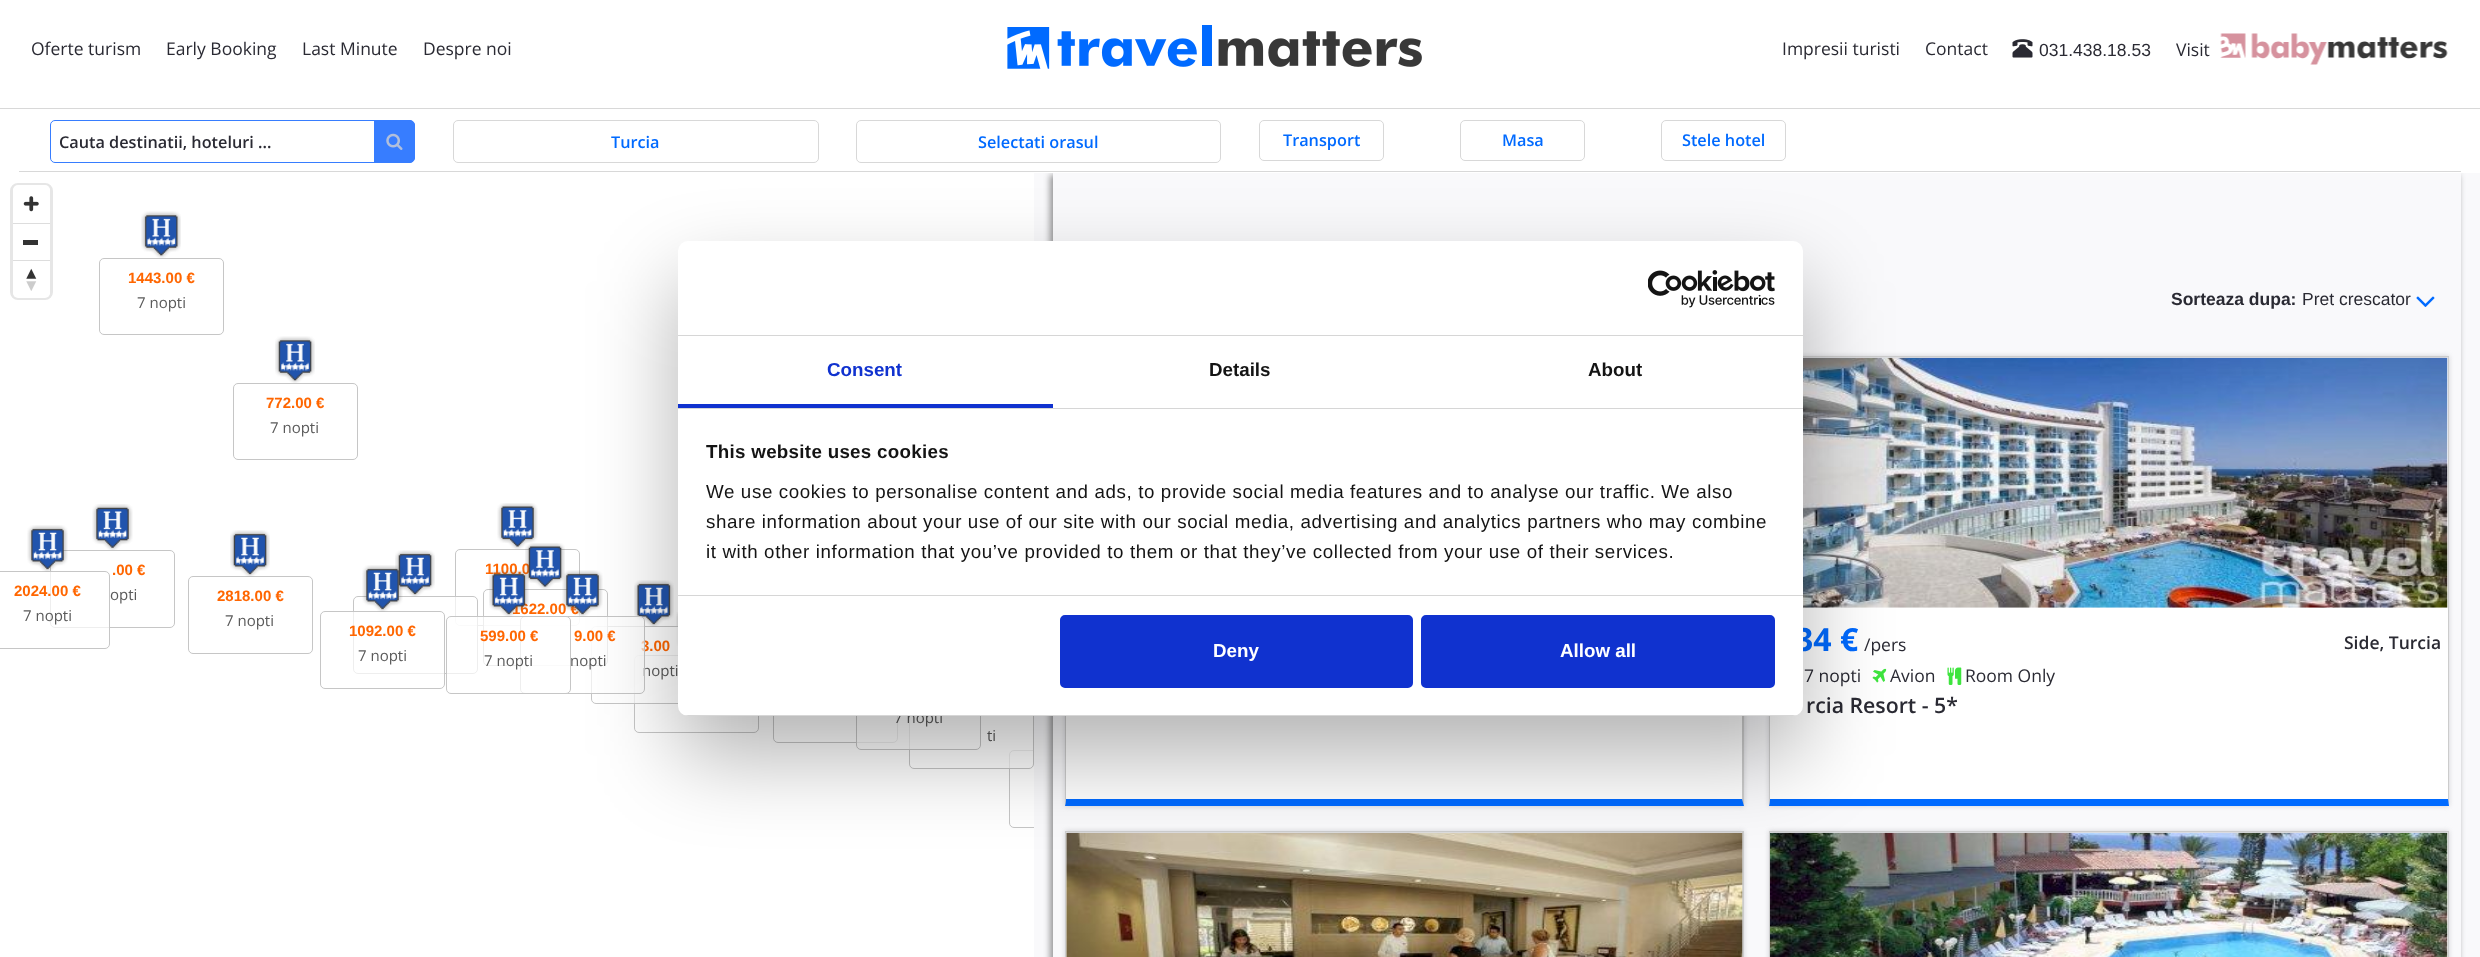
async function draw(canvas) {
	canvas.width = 2480;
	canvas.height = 957;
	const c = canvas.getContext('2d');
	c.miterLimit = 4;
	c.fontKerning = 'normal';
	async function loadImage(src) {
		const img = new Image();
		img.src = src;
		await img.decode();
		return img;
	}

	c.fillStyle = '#fff';
	c.fillRect(0, 0, 2480, 957);
	c.fillStyle = '#d8d8d8';
	c.fillRect(0, 108, 2480, 1);
	c.drawImage(await loadImage('img1.png'), 1007, 25, 415, 44);
	c.font = '17.5px Open Sans';
	c.fillStyle = '#2a2a33';
	for (const [text, x, y] of [
		['Oferte turism', 31, 55],
		['Early Booking', 166, 55],
		['Last Minute', 302, 55],
		['Despre noi', 423, 55],
		['Impresii turisti', 1782, 55],
		['Contact', 1925, 55],
	]) {
		c.fillText(text, x, y);
	}
	c.drawImage(await loadImage('img2.png'), 2012, 39, 21, 19);
	c.font = '17.5px Liberation Sans';
	c.fillText('031.438.18.53', 2039, 56);
	c.font = '17.5px Open Sans';
	c.fillText('Visit', 2176, 56);
	c.drawImage(await loadImage('img3.png'), 2220, 33, 228, 32);
	c.fillStyle = '#d8d8d8';
	c.fillRect(19, 171, 2442, 1);
	c.beginPath();
	c.roundRect(50.5, 120.5, 364, 42, 4.5);
	c.strokeStyle = '#377dff';
	c.stroke();
	c.font = '600 16.25px Open Sans';
	c.fillStyle = '#2a2a33';
	c.fillText('Cauta destinatii, hoteluri ...', 59, 148);
	c.fillStyle = '#377dff';
	c.beginPath();
	c.roundRect(374, 120, 41, 43, [0, 6, 6, 0]);
	c.fill();
	c.drawImage(await loadImage('img4.png'), 386, 133, 17, 17);
	c.beginPath();
	c.roundRect(453.5, 120.5, 365, 42, 4.5);
	c.strokeStyle = '#d8d8d8';
	c.stroke();
	c.fillStyle = '#006aff';
	c.fillText('Turcia', 611, 148);
	c.beginPath();
	c.roundRect(856.5, 120.5, 364, 42, 4.5);
	c.stroke();
	c.fillText('Selectati orasul', 978, 148);
	c.beginPath();
	c.roundRect(1259.5, 120.5, 124, 40, 4.5);
	c.stroke();
	c.fillText('Transport', 1283, 146);
	c.beginPath();
	c.roundRect(1460.5, 120.5, 124, 40, 4.5);
	c.stroke();
	c.fillText('Masa', 1502, 146);
	c.beginPath();
	c.roundRect(1661.5, 120.5, 124, 40, 4.5);
	c.stroke();
	c.fillText('Stele hotel', 1682, 146);
	c.beginPath();
	c.roundRect(11.5, 184.5, 40, 114, 6.5);
	c.strokeStyle = '#e6e6e6';
	c.lineWidth = 3;
	c.stroke();
	c.fillStyle = '#fff';
	c.beginPath();
	c.roundRect(13, 185, 37, 113, 5);
	c.fill();
	c.drawImage(await loadImage('img5.png'), 23, 196, 16, 16);
	for (const [x, y, w, h, color] of [
		[23, 240, 15, 5, '#333'],
		[13, 223, 37, 1, '#ddd'],
		[13, 260, 37, 1, '#ddd'],
	]) {
		c.fillStyle = color;
		c.fillRect(x, y, w, h);
	}
	c.drawImage(await loadImage('img6.png'), 26, 268, 11, 23);
	c.drawImage(await loadImage('img7.png'), 141, 211, 40, 47);
	c.beginPath();
	c.roundRect(99.5, 258.5, 124, 76, 4.5);
	c.strokeStyle = '#c6c6c6';
	c.lineWidth = 1;
	c.stroke();
	c.font = 'bold 15px Liberation Sans';
	c.fillStyle = '#f60';
	c.fillText('1443.00 €', 128, 283);
	c.font = '15px Open Sans';
	c.fillStyle = '#5a5a5a';
	c.fillText('7 nopti', 137, 308);
	c.drawImage(await loadImage('img8.png'), 275, 336, 40, 47);
	c.beginPath();
	c.roundRect(233.5, 383.5, 124, 76, 4.5);
	c.stroke();
	c.font = 'bold 15px Liberation Sans';
	c.fillStyle = '#f60';
	c.fillText('772.00 €', 266, 408);
	c.font = '15px Open Sans';
	c.fillStyle = '#5a5a5a';
	c.fillText('7 nopti', 270, 433);
	c.beginPath();
	c.roundRect(50.5, 550.5, 124, 77, 4.5);
	c.stroke();
	c.fillStyle = '#ffffffb3';
	c.beginPath();
	c.roundRect(0, 571, 110, 78, [0, 5, 5, 0]);
	c.fill();
	c.beginPath();
	c.roundRect(-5.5, 571.5, 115, 77, 4.5);
	c.stroke();
	c.drawImage(await loadImage('img9.png'), 27, 525, 41, 47);
	c.font = 'bold 15px Liberation Sans';
	c.fillStyle = '#f60';
	c.fillText('2024.00 €', 14, 596);
	c.font = '15px Open Sans';
	c.fillStyle = '#5a5a5a';
	c.fillText('7 nopti', 23, 621);
	c.drawImage(await loadImage('img10.png'), 92, 504, 41, 46);
	c.font = 'bold 15px Liberation Sans';
	c.fillStyle = '#f60';
	c.fillText('.00 €', 112, 575);
	c.font = '15px Open Sans';
	c.fillStyle = '#5a5a5a';
	c.fillText('opti', 110, 600);
	c.beginPath();
	c.roundRect(188.5, 576.5, 124, 77, 4.5);
	c.stroke();
	c.drawImage(await loadImage('img11.png'), 230, 530, 40, 47);
	c.font = 'bold 15px Liberation Sans';
	c.fillStyle = '#f60';
	c.fillText('2818.00 €', 217, 601);
	c.font = '15px Open Sans';
	c.fillStyle = '#5a5a5a';
	c.fillText('7 nopti', 225, 626);
	c.beginPath();
	c.roundRect(455.5, 549.5, 124, 76, 4.5);
	c.stroke();
	c.fillStyle = '#ffffffb3';
	c.beginPath();
	c.roundRect(353.5, 596.5, 124, 77, 4.5);
	c.fill();
	c.stroke();
	c.drawImage(await loadImage('img12.png'), 395, 550, 40, 47);
	c.drawImage(await loadImage('img13.png'), 497, 503, 41, 46);
	c.font = 'bold 15px Liberation Sans';
	c.fillStyle = '#f60';
	c.fillText('1100.0', 485, 574);
	c.drawImage(await loadImage('img14.png'), 525, 543, 40, 46);
	c.drawImage(await loadImage('img18.png'), 676, 612, 2, 34);
	c.beginPath();
	c.roundRect(634.5, 655.5, 124, 77, 4.5);
	c.stroke();
	c.fillStyle = '#ffffffb3';
	c.beginPath();
	c.roundRect(591.5, 626.5, 124, 77, 4.5);
	c.fill();
	c.stroke();
	c.beginPath();
	c.roundRect(483.5, 589.5, 124, 76, 4.5);
	c.fill();
	c.stroke();
	c.fillStyle = '#f60';
	c.fillText('1622.00 €', 512, 614);
	c.fillStyle = '#ffffffb3';
	c.beginPath();
	c.roundRect(320.5, 611.5, 124, 77, 4.5);
	c.fill();
	c.stroke();
	c.drawImage(await loadImage('img15.png'), 362, 565, 41, 47);
	c.fillStyle = '#f60';
	c.fillText('1092.00 €', 349, 636);
	c.font = '15px Open Sans';
	c.fillStyle = '#5a5a5a';
	c.fillText('7 nopti', 358, 661);
	c.drawImage(await loadImage('img19.png'), 634, 580, 40, 47);
	c.font = 'bold 15px Liberation Sans';
	c.fillStyle = '#f60';
	c.fillText('3.00', 641, 651);
	c.font = '15px Open Sans';
	c.fillStyle = '#5a5a5a';
	c.fillText('nopti', 642, 676);
	c.fillStyle = '#ffffffb3';
	c.beginPath();
	c.roundRect(520.5, 616.5, 124, 77, 4.5);
	c.fill();
	c.stroke();
	c.drawImage(await loadImage('img17.png'), 562, 570, 41, 47);
	c.beginPath();
	c.roundRect(446.5, 616.5, 124, 77, 4.5);
	c.fill();
	c.stroke();
	c.drawImage(await loadImage('img16.png'), 489, 570, 40, 47);
	c.font = 'bold 15px Liberation Sans';
	c.fillStyle = '#f60';
	c.fillText('599.00 €', 480, 641);
	c.font = '15px Open Sans';
	c.fillStyle = '#5a5a5a';
	c.fillText('7 nopti', 484, 666);
	c.font = 'bold 15px Liberation Sans';
	c.fillStyle = '#f60';
	c.fillText('9.00 €', 574, 641);
	c.font = '15px Open Sans';
	c.fillStyle = '#5a5a5a';
	c.fillText('nopti', 570, 666);
	c.beginPath();
	c.roundRect(773.5, 665.5, 124, 77, 4.5);
	c.stroke();
	c.beginPath();
	c.roundRect(1009.5, 750.5, 124, 77, 4.5);
	c.stroke();
	c.fillStyle = '#ffffffb3';
	c.beginPath();
	c.roundRect(909.5, 691.5, 124, 77, 4.5);
	c.fill();
	c.stroke();
	c.beginPath();
	c.roundRect(856.5, 673.5, 124, 76, 4.5);
	c.fill();
	c.stroke();
	c.fillStyle = '#5a5a5a';
	c.fillText('7 nopti', 894, 723);
	c.fillText('ti', 987, 741);
	c.fillStyle = '#f9f9fb';
	c.fillRect(1034, 173, 1446, 784);
	c.save();
	c.beginPath();
	c.rect(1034, 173, 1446, 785);
	c.clip();
	c.beginPath();
	c.moveTo(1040, 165);
	c.lineTo(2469, 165);
	c.lineTo(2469, 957);
	c.lineTo(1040, 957);
	c.closePath();
	c.moveTo(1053, 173);
	c.lineTo(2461, 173);
	c.lineTo(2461, 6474);
	c.lineTo(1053, 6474);
	c.closePath();
	c.clip('evenodd');
	c.fillStyle = '#00000066';
	c.filter = 'blur(3px)';
	c.beginPath();
	c.rect(1050, 175, 1409, 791);
	c.fill();
	c.filter = 'none';
	c.restore();
	c.font = 'bold 17.5px Liberation Sans';
	c.fillStyle = '#2a2a33';
	c.fillText('Sorteaza dupa:', 2171, 305);
	c.font = '17.5px Liberation Sans';
	c.fillText('Pret crescator', 2302, 305);
	c.drawImage(await loadImage('img20.png'), 2416, 296, 19, 11);
	c.fillStyle = '#d1d1d5';
	c.filter = 'blur(2.5px)';
	c.beginPath();
	c.rect(1065, 356, 679, 450);
	c.fill();
	c.filter = 'none';
	c.fillStyle = '#fff';
	c.fillRect(1066, 716, 676, 83);
	c.fillStyle = '#ccc';
	c.beginPath();
	c.moveTo(1744, 356);
	c.lineTo(1744, 806);
	c.lineTo(1742, 799);
	c.lineTo(1742, 358);
	c.closePath();
	c.fill();
	c.fillStyle = '#006aff';
	c.beginPath();
	c.moveTo(1744, 806);
	c.lineTo(1065, 806);
	c.lineTo(1066, 799);
	c.lineTo(1742, 799);
	c.closePath();
	c.fill();
	c.fillStyle = '#ccc';
	c.beginPath();
	c.moveTo(1065, 806);
	c.lineTo(1065, 356);
	c.lineTo(1066, 358);
	c.lineTo(1066, 799);
	c.closePath();
	c.fill();
	c.fillStyle = '#d1d1d5';
	c.filter = 'blur(2.5px)';
	c.beginPath();
	c.rect(1769, 356, 680, 450);
	c.fill();
	c.filter = 'none';
	c.fillStyle = '#fff';
	c.fillRect(1770, 358, 678, 441);
	c.fillStyle = '#ccc';
	c.fillRect(1803, 356, 646, 1);
	c.beginPath();
	c.moveTo(2449, 356);
	c.lineTo(2449, 806);
	c.lineTo(2448, 799);
	c.lineTo(2448, 358);
	c.closePath();
	c.fill();
	c.fillStyle = '#006aff';
	c.beginPath();
	c.moveTo(2449, 806);
	c.lineTo(1769, 806);
	c.lineTo(1770, 799);
	c.lineTo(2448, 799);
	c.closePath();
	c.fill();
	c.fillStyle = '#ccc';
	c.beginPath();
	c.moveTo(1769, 806);
	c.lineTo(1769, 356);
	c.lineTo(1770, 358);
	c.lineTo(1770, 799);
	c.closePath();
	c.fill();
	c.drawImage(await loadImage('img21.png'), 1803, 357, 645, 251);
	c.font = 'bold 32px Open Sans';
	c.fillStyle = '#006aff';
	c.fillText('34 €', 1795, 651);
	c.font = '17.5px Open Sans';
	c.fillStyle = '#2a2a33';
	c.fillText('/pers', 1864, 651);
	c.font = '600 17.5px Open Sans';
	c.fillText('Side, Turcia', 2344, 649);
	c.font = '17.5px Open Sans';
	c.fillText('7 nopti', 1804, 682);
	c.drawImage(await loadImage('img22.png'), 1872, 668, 15, 15);
	c.fillText('Avion', 1890, 682);
	c.drawImage(await loadImage('img23.png'), 1947, 667, 15, 18);
	c.fillText('Room Only', 1965, 682);
	c.font = '600 21.25px Open Sans';
	c.fillText('rcia Resort - 5*', 1806, 713);
	c.fillStyle = '#d1d1d5';
	c.filter = 'blur(2.5px)';
	c.beginPath();
	c.rect(1065, 831, 679, 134);
	c.fill();
	c.filter = 'none';
	c.fillStyle = '#fff';
	c.fillRect(1066, 833, 1, 124);
	c.fillStyle = '#ccc';
	c.fillRect(1065, 831, 679, 1);
	c.beginPath();
	c.moveTo(1744, 831);
	c.lineTo(1744, 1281);
	c.lineTo(1742, 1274);
	c.lineTo(1742, 832);
	c.closePath();
	c.fill();
	c.beginPath();
	c.moveTo(1065, 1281);
	c.lineTo(1065, 831);
	c.lineTo(1066, 832);
	c.lineTo(1066, 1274);
	c.closePath();
	c.fill();
	c.drawImage(await loadImage('img24.png'), 1066, 832, 677, 125);
	c.fillStyle = '#d1d1d5';
	c.filter = 'blur(2.5px)';
	c.beginPath();
	c.rect(1769, 831, 680, 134);
	c.fill();
	c.filter = 'none';
	c.fillStyle = '#fff';
	c.fillRect(2447, 833, 1, 124);
	c.fillStyle = '#ccc';
	c.fillRect(1769, 831, 680, 1);
	c.beginPath();
	c.moveTo(2449, 831);
	c.lineTo(2449, 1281);
	c.lineTo(2448, 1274);
	c.lineTo(2448, 832);
	c.closePath();
	c.fill();
	c.beginPath();
	c.moveTo(1769, 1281);
	c.lineTo(1769, 831);
	c.lineTo(1770, 832);
	c.lineTo(1770, 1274);
	c.closePath();
	c.fill();
	c.drawImage(await loadImage('img25.png'), 1770, 832, 678, 125);
	c.fillStyle = '#0000004d';
	c.filter = 'blur(42.5px)';
	c.beginPath();
	c.roundRect(678, 281, 1125, 475, 10);
	c.fill();
	c.filter = 'none';
	c.fillStyle = '#fff';
	c.beginPath();
	c.roundRect(678, 241, 1125, 475, 10);
	c.fill();
	c.fillStyle = '#d6d6d6';
	c.fillRect(678, 335, 1125, 1);
	c.drawImage(await loadImage('img26.png'), 1648, 270, 127, 38);
	c.fillRect(678, 408, 1125, 1);
	c.fillStyle = '#1032cf';
	c.fillRect(678, 404, 375, 4);
	c.font = 'bold 18.75px Liberation Sans';
	c.fillText('Consent', 827, 376);
	c.fillStyle = '#141414';
	c.fillText('Details', 1209, 376);
	c.fillText('About', 1588, 376);
	c.fillStyle = '#d6d6d6';
	c.fillRect(678, 595, 1125, 1);
	c.letterSpacing = '0.3px';
	c.fillStyle = '#141414';
	c.fillText('This website uses cookies', 706, 458);
	c.letterSpacing = '0.62px';
	c.font = '18.75px Liberation Sans';
	for (const [text, x, y] of [
		['We use cookies to personalise content and ads, to provide social media features and to analyse our traffic. We also', 706, 498],
		['share information about your use of our site with our social media, advertising and analytics partners who may combine', 706, 528],
		['it with other information that you’ve provided to them or that they’ve collected from your use of their services.', 706, 558],
	]) {
		c.fillText(text, x, y);
	}
	c.save();
	c.beginPath();
	c.roundRect(678, 241, 1125, 475, 10);
	c.clip();
	c.fillStyle = '#d6d6d6';
	c.fillRect(678, 715, 1125, 1);
	c.restore();
	c.fillStyle = '#1032cf';
	c.beginPath();
	c.roundRect(1061.5, 616.5, 350, 70, 3.5);
	c.fill();
	c.strokeStyle = '#1032cf';
	c.lineWidth = 3;
	c.stroke();
	c.letterSpacing = '0px';
	c.font = 'bold 18.75px Liberation Sans';
	c.fillStyle = '#fff';
	c.fillText('Deny', 1213, 657);
	c.fillStyle = '#1032cf';
	c.beginPath();
	c.roundRect(1422.5, 616.5, 351, 70, 3.5);
	c.fill();
	c.stroke();
	c.fillStyle = '#fff';
	c.fillText('Allow all', 1560, 657);
}

draw(document.querySelector('canvas'));
